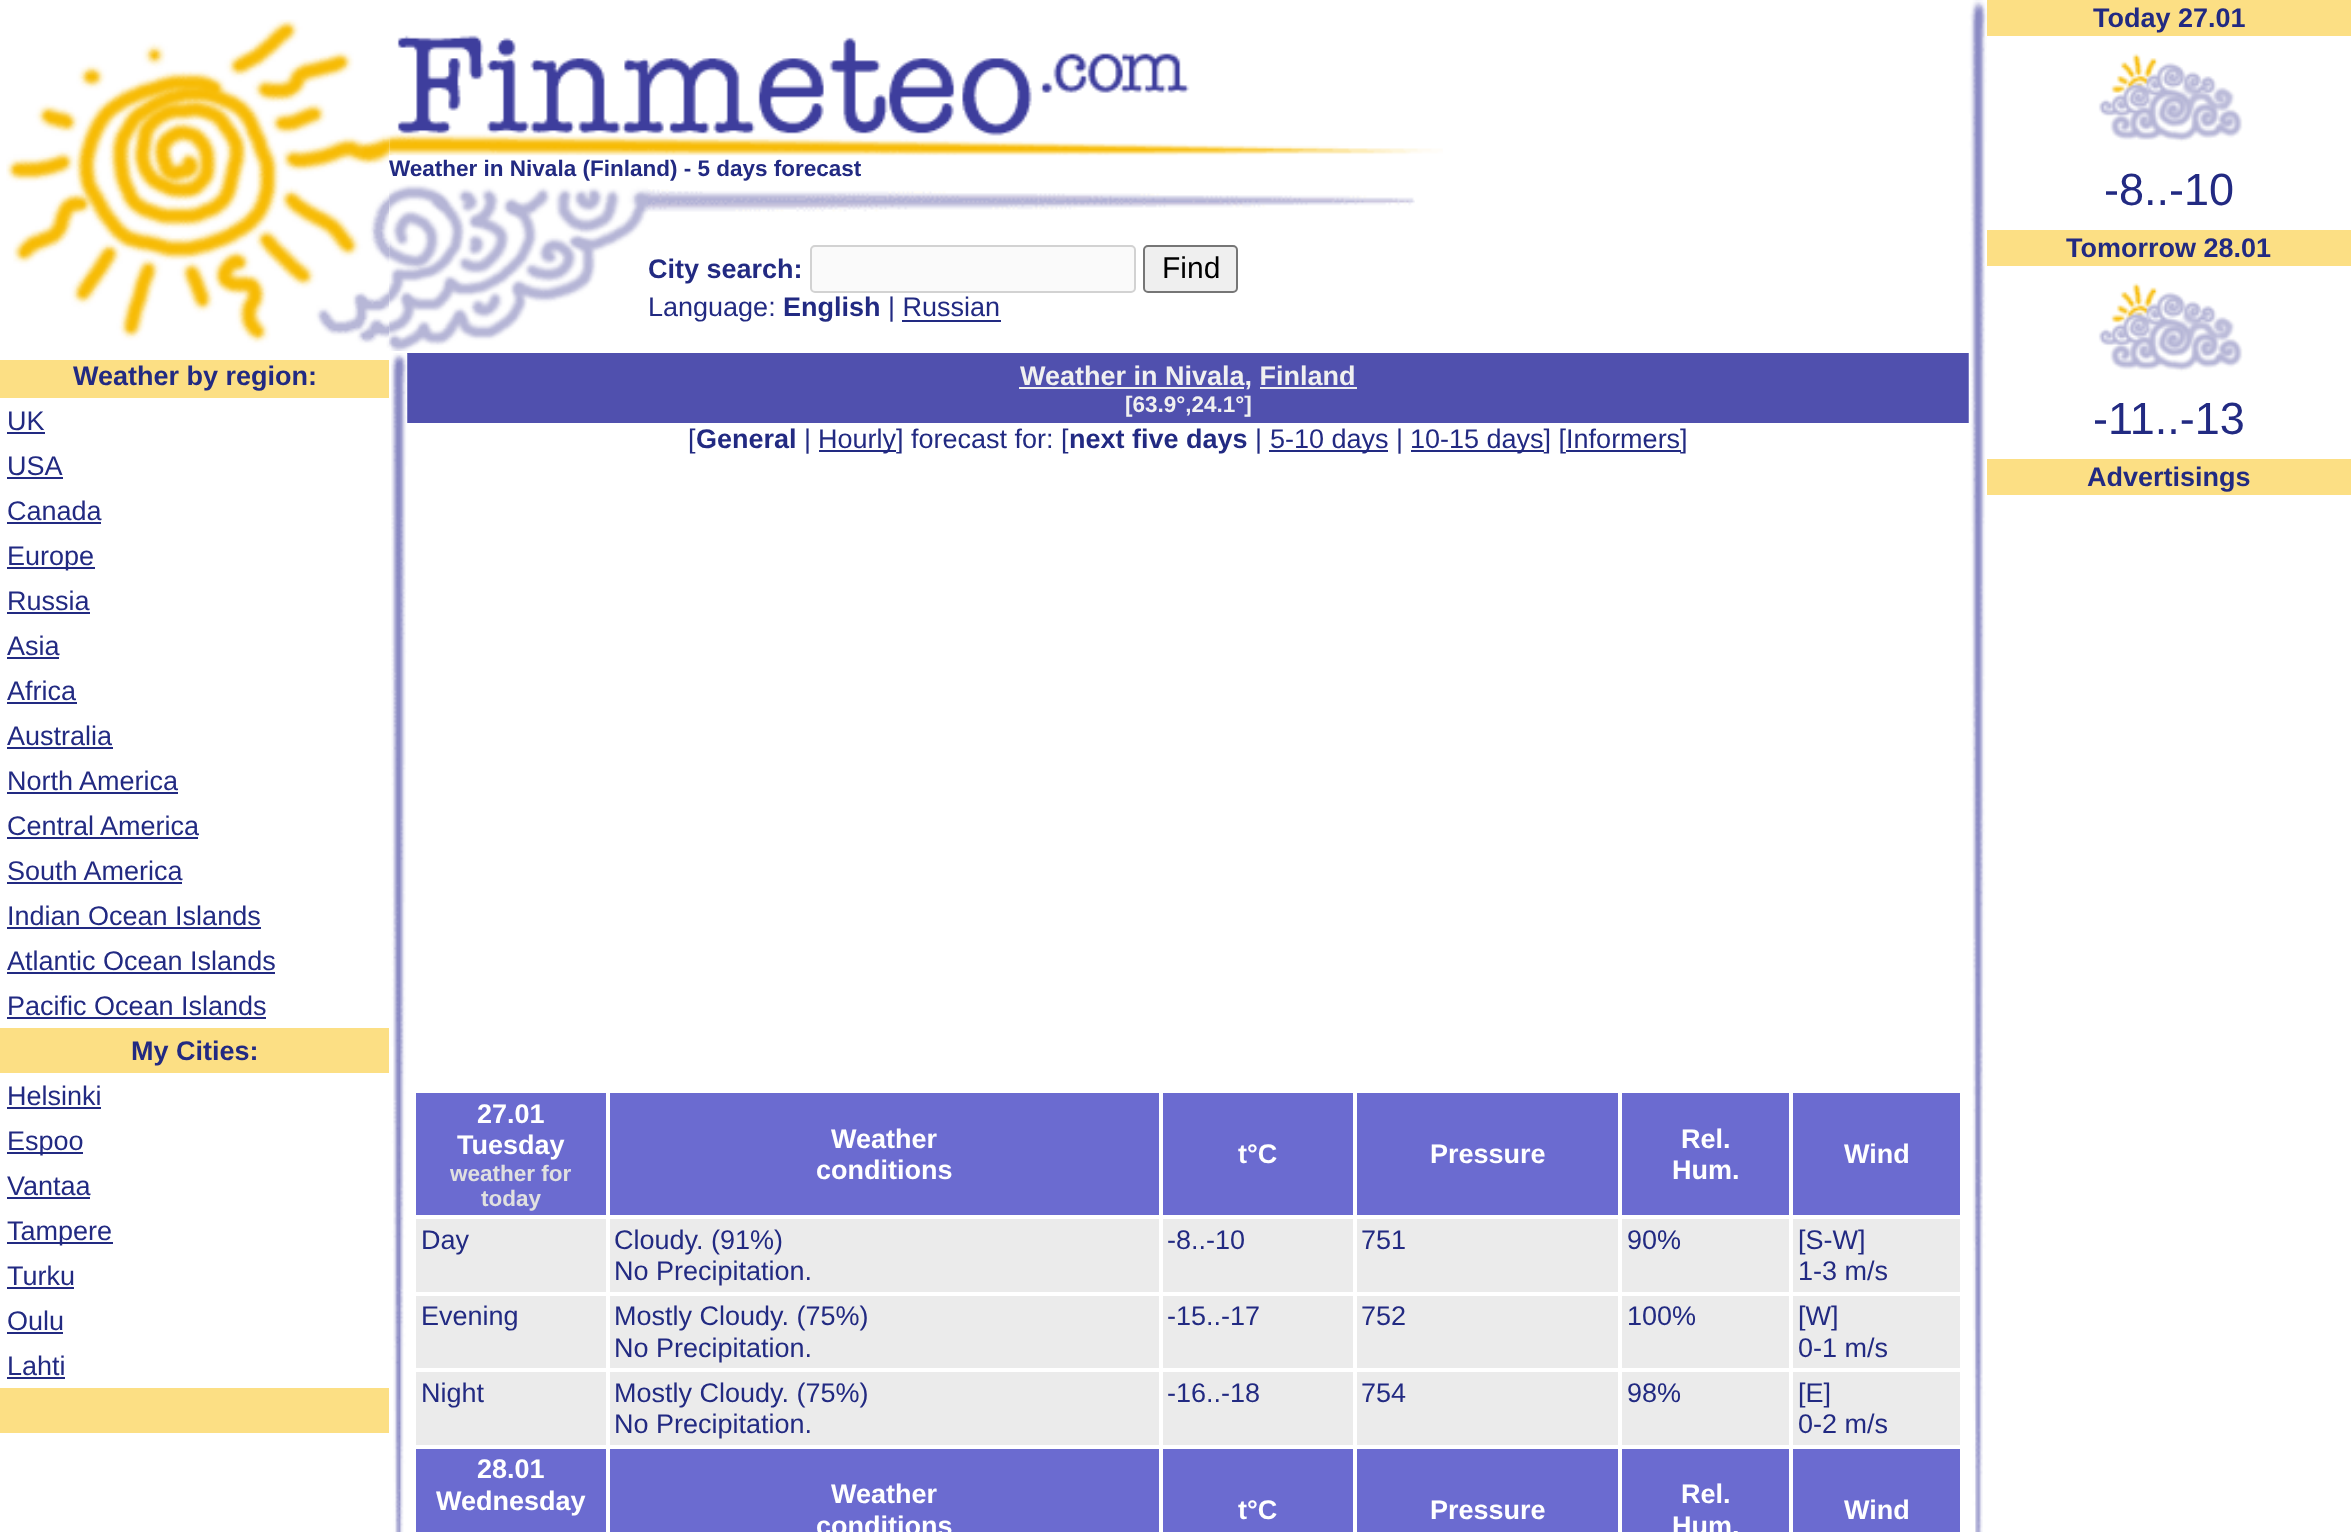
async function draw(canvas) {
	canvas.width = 2351;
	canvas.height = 1532;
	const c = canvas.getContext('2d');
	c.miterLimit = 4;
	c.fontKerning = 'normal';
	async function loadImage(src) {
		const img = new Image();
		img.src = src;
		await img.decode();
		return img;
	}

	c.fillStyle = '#fff';
	c.fillRect(0, 0, 2351, 1532);
	c.drawImage(await loadImage('img1.png'), 6, 19, 384, 329);
	c.fillRect(389, 134, 1, 26);
	c.drawImage(await loadImage('img2.png'), 389, 35, 1054, 121);
	c.font = 'bold 22.5px Liberation Sans';
	c.fillStyle = '#222a82';
	c.fillText('Weather in Nivala (Finland) - 5 days forecast', 389, 176);
	c.drawImage(await loadImage('img3.png'), 389, 184, 259, 167);
	c.drawImage(await loadImage('img4.png'), 648, 189, 767, 23);
	c.font = 'bold 27px Liberation Sans';
	c.fillText('City search:', 648, 278);
	c.fillStyle = '#fafafa';
	c.beginPath();
	c.roundRect(811, 246, 324, 46, 4);
	c.fill();
	c.strokeStyle = '#d2d2d2';
	c.lineWidth = 2;
	c.stroke();
	c.fillStyle = '#efefef';
	c.beginPath();
	c.roundRect(1144, 246, 93, 46, 4);
	c.fill();
	c.strokeStyle = '#767676';
	c.stroke();
	c.font = '30px Liberation Sans';
	c.fillStyle = '#000';
	c.fillText('Find', 1162, 278);
	c.font = '27px Liberation Sans';
	c.fillStyle = '#222a82';
	c.fillText('Language:', 648, 316);
	c.font = 'bold 27px Liberation Sans';
	c.fillText('English', 783, 316);
	c.font = '27px Liberation Sans';
	c.fillText('| Russian', 888, 316);
	c.fillRect(902, 320, 99, 2);
	c.fillStyle = '#5050ae';
	c.fillRect(407, 353, 1562, 70);
	c.drawImage(await loadImage('img5.png'), 1968, 0, 19, 1532);
	c.fillStyle = '#fcdf84';
	c.fillRect(1987, 0, 364, 36);
	c.font = 'bold 27px Liberation Sans';
	c.fillStyle = '#222a82';
	c.fillText('Today 27.01', 2093, 27);
	c.drawImage(await loadImage('img6.png'), 2098, 53, 145, 89);
	c.font = '45px Liberation Sans';
	c.fillText('-8..-10', 2104, 205);
	c.fillStyle = '#fcdf84';
	c.fillRect(1987, 230, 364, 36);
	c.font = 'bold 27px Liberation Sans';
	c.fillStyle = '#222a82';
	c.fillText('Tomorrow 28.01', 2066, 257);
	c.drawImage(await loadImage('img7.png'), 2098, 283, 145, 89);
	c.font = '45px Liberation Sans';
	c.fillText('-11..-13', 2093, 434);
	c.fillStyle = '#fcdf84';
	c.fillRect(1987, 459, 364, 36);
	c.font = 'bold 27px Liberation Sans';
	c.fillStyle = '#222a82';
	c.fillText('Advertisings', 2087, 486);
	c.fillStyle = '#fcdf84';
	c.fillRect(0, 360, 389, 38);
	c.fillStyle = '#222a82';
	c.fillText('Weather by region:', 73, 385);
	c.font = '27px Liberation Sans';
	c.fillText('UK', 7, 430);
	c.fillRect(7, 432, 38, 2);
	c.fillText('USA', 7, 475);
	c.fillRect(7, 477, 56, 2);
	c.fillText('Canada', 7, 520);
	c.fillRect(7, 522, 94, 2);
	c.fillRect(7, 567, 88, 2);
	c.fillText('Europe', 7, 565);
	c.fillText('Russia', 7, 610);
	c.fillRect(7, 612, 83, 2);
	c.fillText('Asia', 7, 655);
	c.fillRect(7, 657, 52, 2);
	c.fillText('Africa', 7, 700);
	c.fillRect(7, 702, 70, 2);
	c.fillText('Australia', 7, 745);
	c.fillRect(7, 747, 106, 2);
	c.fillText('North America', 7, 790);
	c.fillRect(7, 792, 171, 2);
	c.fillText('Central America', 7, 835);
	c.fillRect(7, 837, 191, 2);
	c.fillText('South America', 7, 880);
	c.fillRect(7, 882, 175, 2);
	c.fillText('Indian Ocean Islands', 7, 925);
	c.fillRect(7, 927, 254, 2);
	c.fillText('Atlantic Ocean Islands', 7, 970);
	c.fillRect(7, 972, 268, 2);
	c.fillText('Pacific Ocean Islands', 7, 1015);
	c.fillRect(7, 1017, 259, 2);
	c.fillStyle = '#fcdf84';
	c.fillRect(0, 1028, 389, 45);
	c.font = 'bold 27px Liberation Sans';
	c.fillStyle = '#222a82';
	c.fillText('My Cities:', 131, 1060);
	c.font = '27px Liberation Sans';
	c.fillText('Helsinki', 7, 1105);
	c.fillRect(7, 1107, 94, 2);
	c.fillRect(7, 1152, 76, 2);
	c.fillText('Espoo', 7, 1150);
	c.fillText('Vantaa', 7, 1195);
	c.fillRect(7, 1197, 83, 2);
	c.fillRect(7, 1242, 106, 2);
	c.fillText('Tampere', 7, 1240);
	c.fillText('Turku', 7, 1285);
	c.fillRect(7, 1287, 67, 2);
	c.fillText('Oulu', 7, 1330);
	c.fillRect(7, 1332, 56, 2);
	c.fillText('Lahti', 7, 1375);
	c.fillRect(7, 1377, 58, 2);
	c.fillStyle = '#fcdf84';
	c.fillRect(0, 1388, 389, 45);
	c.drawImage(await loadImage('img8.png'), 391, 353, 17, 1179);
	c.fillStyle = '#f0f0f0';
	c.fillRect(1019, 387, 225, 2);
	c.font = 'bold 27px Liberation Sans';
	c.fillText('Weather in Nivala, Finland', 1020, 385);
	c.fillRect(1260, 387, 97, 2);
	c.font = 'bold 22.5px Liberation Sans';
	c.fillText('[63.9°,24.1°]', 1125, 412);
	c.font = '27px Liberation Sans';
	c.fillStyle = '#222a82';
	c.fillText('[', 688, 448);
	c.font = 'bold 27px Liberation Sans';
	c.fillText('General', 696, 448);
	c.font = '27px Liberation Sans';
	c.fillText('|', 804, 448);
	c.fillRect(819, 450, 77, 2);
	c.fillText('Hourly] forecast for: [', 818, 448);
	c.font = 'bold 27px Liberation Sans';
	c.fillText('next five days', 1069, 448);
	c.font = '27px Liberation Sans';
	c.fillText('|', 1255, 448);
	c.fillRect(1269, 450, 119, 2);
	c.fillText('5-10 days |', 1270, 448);
	c.fillRect(1411, 450, 133, 2);
	c.fillText('10-15 days] [Informers', 1410, 448);
	c.fillStyle = '#fff';
	c.fillRect(1566, 428, 1, 26);
	c.fillStyle = '#222a82';
	c.fillRect(1566, 450, 115, 2);
	c.fillText(']', 1680, 448);
	c.fillStyle = '#6b6bd0';
	c.fillRect(416, 1093, 1544, 122);
	c.strokeStyle = '#fff';
	c.strokeRect(415, 1092, 192, 124);
	c.font = 'bold 27px Liberation Sans';
	c.fillStyle = '#fff';
	c.fillText('27.01', 477, 1123);
	c.fillText('Tuesday', 457, 1154);
	c.font = 'bold 22.5px Liberation Sans';
	c.fillStyle = '#e0e0e0';
	c.fillText('weather for', 450, 1181);
	c.fillText('today', 481, 1206);
	c.strokeRect(609, 1092, 551, 124);
	c.font = 'bold 27px Liberation Sans';
	c.fillStyle = '#fff';
	c.fillText('Weather', 831, 1148);
	c.fillText('conditions', 816, 1179);
	c.strokeRect(1162, 1092, 192, 124);
	c.fillText('t°C', 1238, 1163);
	c.strokeRect(1356, 1092, 263, 124);
	c.fillText('Pressure', 1430, 1163);
	c.strokeRect(1621, 1092, 169, 124);
	c.fillText('Rel.', 1681, 1148);
	c.fillText('Hum.', 1672, 1179);
	c.strokeRect(1792, 1092, 169, 124);
	c.fillText('Wind', 1844, 1163);
	c.fillStyle = '#ebebeb';
	c.fillRect(416, 1219, 190, 73);
	c.font = '27px Liberation Sans';
	c.fillStyle = '#222a82';
	c.fillText('Day', 421, 1249);
	c.fillStyle = '#ebebeb';
	c.fillRect(610, 1219, 549, 73);
	c.fillStyle = '#222a82';
	c.fillText('Cloudy. (91%)', 614, 1249);
	c.fillText('No Precipitation.', 614, 1280);
	c.fillStyle = '#ebebeb';
	c.fillRect(1163, 1219, 190, 73);
	c.fillStyle = '#222a82';
	c.fillText('-8..-10', 1167, 1249);
	c.fillStyle = '#ebebeb';
	c.fillRect(1357, 1219, 261, 73);
	c.fillStyle = '#222a82';
	c.fillText('751', 1361, 1249);
	c.fillStyle = '#ebebeb';
	c.fillRect(1622, 1219, 167, 73);
	c.fillStyle = '#222a82';
	c.fillText('90%', 1627, 1249);
	c.fillStyle = '#ebebeb';
	c.fillRect(1793, 1219, 167, 73);
	c.fillStyle = '#222a82';
	c.fillText('[S-W]', 1798, 1249);
	c.fillText('1-3 m/s', 1798, 1280);
	c.fillStyle = '#ebebeb';
	c.fillRect(416, 1296, 190, 72);
	c.fillStyle = '#222a82';
	c.fillText('Evening', 421, 1325);
	c.fillStyle = '#ebebeb';
	c.fillRect(610, 1296, 549, 72);
	c.fillStyle = '#222a82';
	c.fillText('Mostly Cloudy. (75%)', 614, 1325);
	c.fillText('No Precipitation.', 614, 1357);
	c.fillStyle = '#ebebeb';
	c.fillRect(1163, 1296, 190, 72);
	c.fillStyle = '#222a82';
	c.fillText('-15..-17', 1167, 1325);
	c.fillStyle = '#ebebeb';
	c.fillRect(1357, 1296, 261, 72);
	c.fillStyle = '#222a82';
	c.fillText('752', 1361, 1325);
	c.fillStyle = '#ebebeb';
	c.fillRect(1622, 1296, 167, 72);
	c.fillStyle = '#222a82';
	c.fillText('100%', 1627, 1325);
	c.fillStyle = '#ebebeb';
	c.fillRect(1793, 1296, 167, 72);
	c.fillStyle = '#222a82';
	c.fillText('[W]', 1798, 1325);
	c.fillText('0-1 m/s', 1798, 1357);
	c.fillStyle = '#ebebeb';
	c.fillRect(416, 1372, 190, 73);
	c.fillStyle = '#222a82';
	c.fillText('Night', 421, 1402);
	c.fillStyle = '#ebebeb';
	c.fillRect(610, 1372, 549, 73);
	c.fillStyle = '#222a82';
	c.fillText('Mostly Cloudy. (75%)', 614, 1402);
	c.fillText('No Precipitation.', 614, 1433);
	c.fillStyle = '#ebebeb';
	c.fillRect(1163, 1372, 190, 73);
	c.fillStyle = '#222a82';
	c.fillText('-16..-18', 1167, 1402);
	c.fillStyle = '#ebebeb';
	c.fillRect(1357, 1372, 261, 73);
	c.fillStyle = '#222a82';
	c.fillText('754', 1361, 1402);
	c.fillStyle = '#ebebeb';
	c.fillRect(1622, 1372, 167, 73);
	c.fillStyle = '#222a82';
	c.fillText('98%', 1627, 1402);
	c.fillStyle = '#ebebeb';
	c.fillRect(1793, 1372, 167, 73);
	c.fillStyle = '#222a82';
	c.fillText('[E]', 1798, 1402);
	c.fillText('0-2 m/s', 1798, 1433);
	c.fillStyle = '#6b6bd0';
	c.fillRect(416, 1449, 1544, 83);
	c.strokeRect(415, 1448, 192, 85);
	c.font = 'bold 27px Liberation Sans';
	c.fillStyle = '#fff';
	c.fillText('28.01', 477, 1478);
	c.fillText('Wednesday', 436, 1510);
	c.strokeRect(609, 1448, 551, 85);
	c.fillText('Weather', 831, 1503);
	c.fillText('conditions', 816, 1535);
	c.strokeRect(1162, 1448, 192, 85);
	c.fillText('t°C', 1238, 1519);
	c.strokeRect(1356, 1448, 263, 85);
	c.fillText('Pressure', 1430, 1519);
	c.strokeRect(1621, 1448, 169, 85);
	c.fillText('Rel.', 1681, 1503);
	c.fillText('Hum.', 1672, 1535);
	c.strokeRect(1792, 1448, 169, 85);
	c.fillText('Wind', 1844, 1519);
}

draw(document.querySelector('canvas'));
